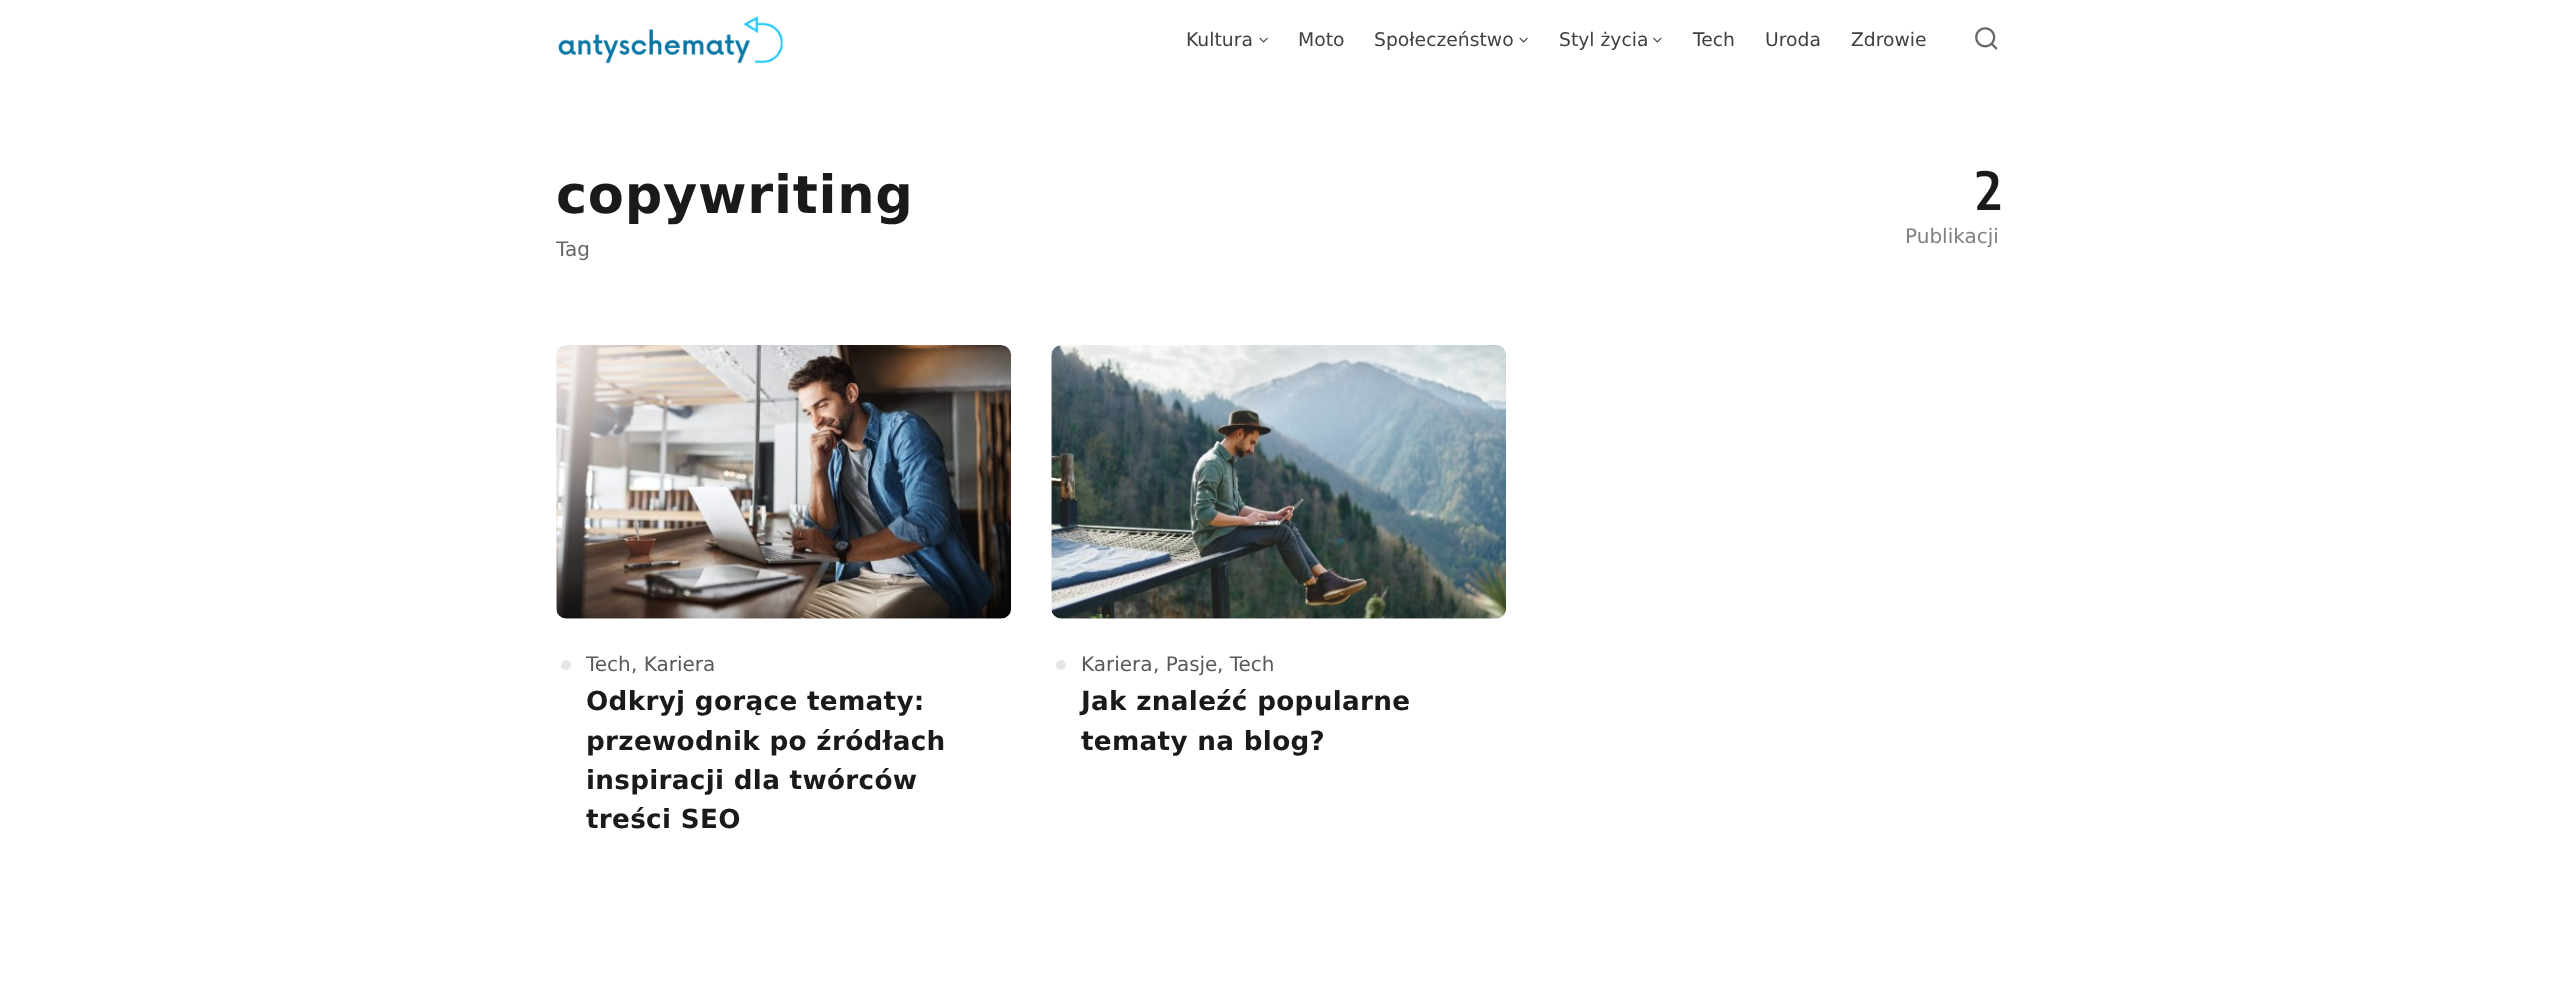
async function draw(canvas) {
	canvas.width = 2557;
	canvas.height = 992;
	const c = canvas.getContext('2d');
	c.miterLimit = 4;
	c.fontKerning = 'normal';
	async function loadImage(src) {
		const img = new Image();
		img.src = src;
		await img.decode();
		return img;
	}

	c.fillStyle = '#fff';
	c.fillRect(0, 0, 2557, 992);
	c.drawImage(await loadImage('img1.png'), 558, 16, 225, 48);
	c.font = '18.75px DejaVu Sans';
	c.fillStyle = '#404040';
	c.fillText('Kultura', 1186, 46);
	c.drawImage(await loadImage('img2.png'), 1259, 37, 9, 6);
	c.fillText('Moto', 1298, 46);
	c.fillText('Społeczeństwo', 1374, 46);
	c.drawImage(await loadImage('img2.png'), 1519, 37, 9, 6);
	c.fillText('Styl życia', 1559, 46);
	c.drawImage(await loadImage('img3.png'), 1653, 37, 9, 6);
	for (const [text, x, y] of [
		['Tech', 1693, 46],
		['Uroda', 1765, 46],
		['Zdrowie', 1851, 46],
	]) {
		c.fillText(text, x, y);
	}
	c.drawImage(await loadImage('img4.png'), 1975, 27, 23, 23);
	c.letterSpacing = '0.75px';
	c.font = 'bold 52.5px DejaVu Sans';
	c.fillStyle = '#1a1a1a';
	c.fillText('copywriting', 556, 213);
	c.letterSpacing = '0px';
	c.font = '20px DejaVu Sans';
	c.fillStyle = '#666';
	c.fillText('Tag', 556, 256);
	c.font = '600 52.5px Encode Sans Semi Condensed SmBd';
	c.fillStyle = '#1a1a1a';
	c.fillText('2', 1976, 210);
	c.font = '20px DejaVu Sans';
	c.fillStyle = '#808080';
	c.fillText('Publikacji', 1905, 243);
	c.fillStyle = '#f4f6f8';
	c.beginPath();
	c.roundRect(556, 345, 455, 274, 10);
	c.fill();
	c.drawImage(await loadImage('img6.png'), 765, 466, 38, 29);
	c.drawImage(await loadImage('img5.png'), 556, 345, 455, 274);
	c.fillStyle = '#e6e6e6';
	c.beginPath();
	c.arc(566, 665, 5, 0, 2 * Math.PI);
	c.fill();
	c.fillStyle = '#595959';
	c.fillText('Tech', 586, 671);
	c.fillText(', Kariera', 631, 671);
	c.letterSpacing = '0.3px';
	c.font = 'bold 26.25px DejaVu Sans';
	c.fillStyle = '#1a1a1a';
	for (const [text, x, y] of [
		['Odkryj gorące tematy:', 586, 710],
		['przewodnik po źródłach', 586, 750],
		['inspiracji dla twórców', 586, 789],
		['treści SEO', 586, 828],
	]) {
		c.fillText(text, x, y);
	}
	c.fillStyle = '#f4f6f8';
	c.beginPath();
	c.roundRect(1051, 345, 455, 274, 10);
	c.fill();
	c.drawImage(await loadImage('img6.png'), 1260, 466, 38, 29);
	c.drawImage(await loadImage('img7.png'), 1051, 345, 455, 274);
	c.fillStyle = '#e6e6e6';
	c.beginPath();
	c.arc(1061, 665, 5, 0, 2 * Math.PI);
	c.fill();
	c.letterSpacing = '0px';
	c.font = '20px DejaVu Sans';
	c.fillStyle = '#595959';
	for (const [text, x, y] of [
		['Kariera', 1081, 671],
		[', Pasje', 1153, 671],
		[', Tech', 1217, 671],
	]) {
		c.fillText(text, x, y);
	}
	c.letterSpacing = '0.3px';
	c.font = 'bold 26.25px DejaVu Sans';
	c.fillStyle = '#1a1a1a';
	c.fillText('Jak znaleźć popularne', 1081, 710);
	c.fillText('tematy na blog?', 1081, 750);
}

draw(document.querySelector('canvas'));
